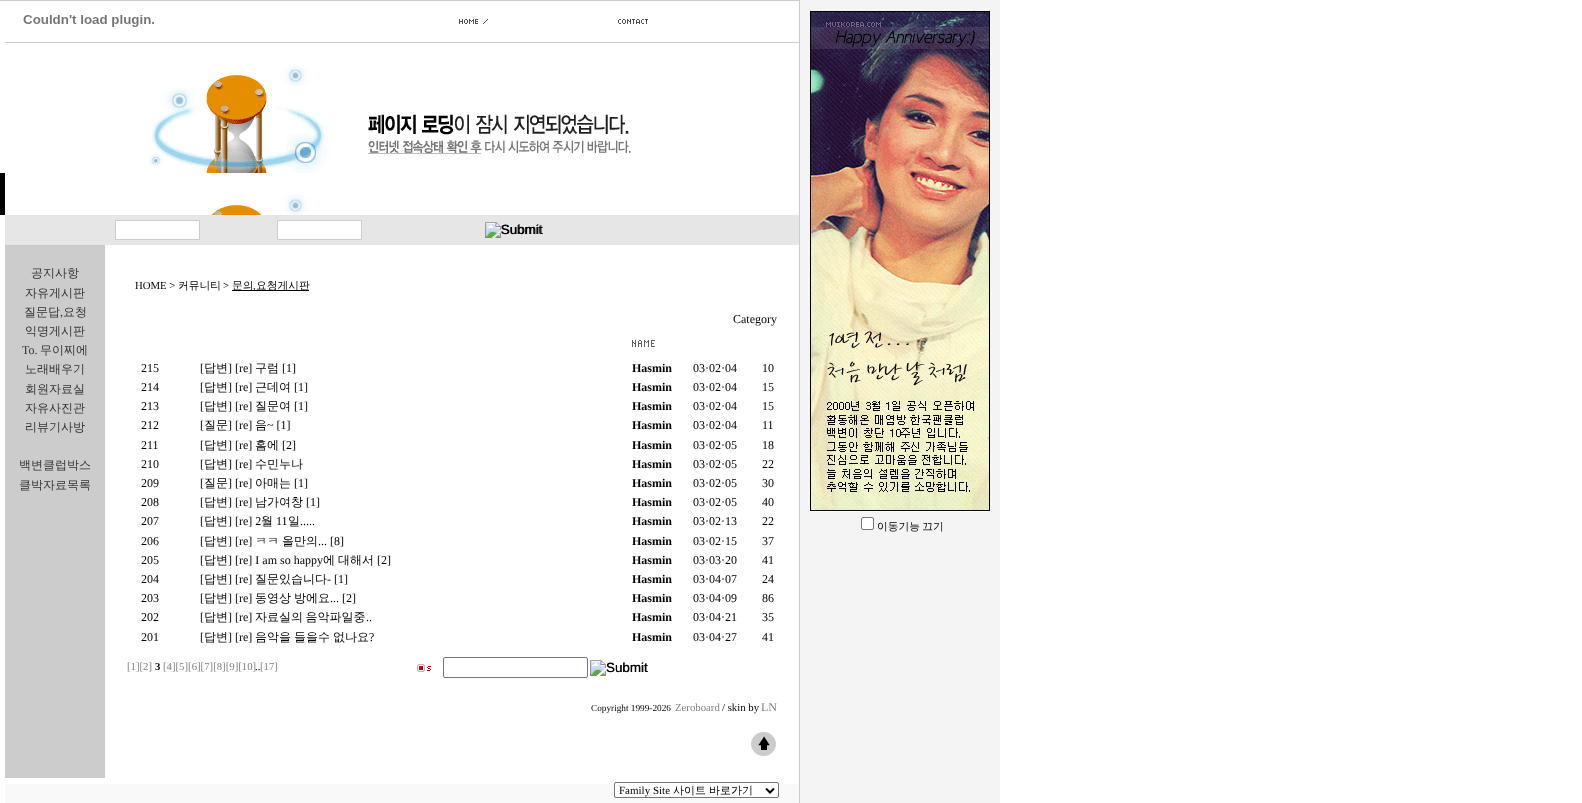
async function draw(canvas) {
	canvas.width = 1582;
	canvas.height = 803;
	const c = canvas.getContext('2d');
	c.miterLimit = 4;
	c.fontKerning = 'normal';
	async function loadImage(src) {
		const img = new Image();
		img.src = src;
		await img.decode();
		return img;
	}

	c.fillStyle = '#fff';
	c.fillRect(0, 0, 1582, 803);
	c.fillStyle = '#ccc';
	c.fillRect(0, 0, 800, 1);
	c.fillRect(5, 42, 794, 1);
	c.drawImage(await loadImage('img1.png'), 23, 15, 131, 12);
	c.drawImage(await loadImage('img2.png'), 459, 19, 29, 5);
	c.drawImage(await loadImage('img3.png'), 618, 19, 30, 5);
	c.fillRect(799, 1, 1, 802);
	c.drawImage(await loadImage('img4.png'), 149, 64, 482, 109);
	c.fillStyle = '#000';
	c.fillRect(0, 173, 5, 42);
	c.drawImage(await loadImage('img5.png'), 5, 173, 794, 42);
	c.fillStyle = '#e6e6e6';
	c.fillRect(5, 215, 794, 30);
	c.fillStyle = '#fff';
	c.beginPath();
	c.rect(115.5, 220.5, 84, 19);
	c.fill();
	c.strokeStyle = '#ccc';
	c.stroke();
	c.beginPath();
	c.rect(277.5, 220.5, 84, 19);
	c.fill();
	c.stroke();
	c.drawImage(await loadImage('img6.png'), 485, 222, 57, 16);
	c.font = '13.5px Liberation Sans';
	c.fillStyle = '#000';
	c.fillText('Submit', 501, 234);
	c.fillStyle = '#ccc';
	c.fillRect(5, 245, 100, 533);
	c.font = '500 12px WenQuanYi Zen Hei';
	c.fillStyle = '#333';
	for (const [text, x, y] of [
		['공지사항', 31, 277],
		['자유게시판', 25, 297],
		['질문답', 24, 316],
	]) {
		c.fillText(text, x, y);
	}
	c.font = '12px Liberation Serif';
	c.fillText(',', 60, 316);
	c.font = '500 12px WenQuanYi Zen Hei';
	c.fillText('요청', 63, 316);
	c.fillText('익명게시판', 25, 335);
	c.font = '12px Liberation Serif';
	c.fillText('To.', 22, 354);
	c.font = '500 12px WenQuanYi Zen Hei';
	for (const [text, x, y] of [
		['무이찌에', 40, 354],
		['노래배우기', 25, 373],
		['회원자료실', 25, 393],
		['자유사진관', 25, 412],
		['리뷰기사방', 25, 431],
		['백변클럽박스', 19, 469],
		['클박자료목록', 19, 489],
	]) {
		c.fillText(text, x, y);
	}
	c.font = '10.75px Liberation Serif';
	c.fillStyle = '#000';
	c.fillText('HOME >', 135, 289);
	c.font = '500 10.75px WenQuanYi Zen Hei';
	c.fillText('커뮤니티', 178, 289);
	c.font = '10.75px Liberation Serif';
	c.fillText('>', 223, 289);
	c.fillRect(232, 290, 77, 1);
	c.font = '500 10.75px WenQuanYi Zen Hei';
	c.fillText('문의', 232, 289);
	c.fillText('요청게시판', 256, 289);
	c.font = '10.75px Liberation Serif';
	c.fillText(',', 253, 289);
	c.font = '12px Liberation Serif';
	c.fillText('Category', 733, 323);
	c.drawImage(await loadImage('img7.png'), 632, 340, 23, 7);
	c.fillText('215', 141, 372);
	c.fillText('[', 200, 372);
	c.font = '500 12px WenQuanYi Zen Hei';
	c.fillText('답변', 204, 372);
	c.font = '12px Liberation Serif';
	c.fillText('] [re]', 228, 372);
	c.font = '500 12px WenQuanYi Zen Hei';
	c.fillText('구럼', 255, 372);
	c.font = '12px Liberation Serif';
	c.fillText('[1]', 282, 372);
	c.font = 'bold 12px Liberation Serif';
	c.fillText('Hasmin', 632, 372);
	c.font = '12px Liberation Serif';
	for (const [text, x, y] of [
		['03·02·04', 693, 372],
		['10', 762, 372],
		['214', 141, 391],
		['[', 200, 391],
	]) {
		c.fillText(text, x, y);
	}
	c.font = '500 12px WenQuanYi Zen Hei';
	c.fillText('답변', 204, 391);
	c.font = '12px Liberation Serif';
	c.fillText('] [re]', 228, 391);
	c.font = '500 12px WenQuanYi Zen Hei';
	c.fillText('근데여', 255, 391);
	c.font = '12px Liberation Serif';
	c.fillText('[1]', 294, 391);
	c.font = 'bold 12px Liberation Serif';
	c.fillText('Hasmin', 632, 391);
	c.font = '12px Liberation Serif';
	for (const [text, x, y] of [
		['03·02·04', 693, 391],
		['15', 762, 391],
		['213', 141, 410],
		['[', 200, 410],
	]) {
		c.fillText(text, x, y);
	}
	c.font = '500 12px WenQuanYi Zen Hei';
	c.fillText('답변', 204, 410);
	c.font = '12px Liberation Serif';
	c.fillText('] [re]', 228, 410);
	c.font = '500 12px WenQuanYi Zen Hei';
	c.fillText('질문여', 255, 410);
	c.font = '12px Liberation Serif';
	c.fillText('[1]', 294, 410);
	c.font = 'bold 12px Liberation Serif';
	c.fillText('Hasmin', 632, 410);
	c.font = '12px Liberation Serif';
	for (const [text, x, y] of [
		['03·02·04', 693, 410],
		['15', 762, 410],
		['212', 141, 429],
		['[', 200, 429],
	]) {
		c.fillText(text, x, y);
	}
	c.font = '500 12px WenQuanYi Zen Hei';
	c.fillText('질문', 204, 429);
	c.font = '12px Liberation Serif';
	c.fillText('] [re]', 228, 429);
	c.font = '500 12px WenQuanYi Zen Hei';
	c.fillText('음', 255, 429);
	c.font = '12px Liberation Serif';
	c.fillText('~ [1]', 267, 429);
	c.font = 'bold 12px Liberation Serif';
	c.fillText('Hasmin', 632, 429);
	c.font = '12px Liberation Serif';
	for (const [text, x, y] of [
		['03·02·04', 693, 429],
		['11', 762, 429],
		['211', 141, 449],
		['[', 200, 449],
	]) {
		c.fillText(text, x, y);
	}
	c.font = '500 12px WenQuanYi Zen Hei';
	c.fillText('답변', 204, 449);
	c.font = '12px Liberation Serif';
	c.fillText('] [re]', 228, 449);
	c.font = '500 12px WenQuanYi Zen Hei';
	c.fillText('홈에', 255, 449);
	c.font = '12px Liberation Serif';
	c.fillText('[2]', 282, 449);
	c.font = 'bold 12px Liberation Serif';
	c.fillText('Hasmin', 632, 449);
	c.font = '12px Liberation Serif';
	for (const [text, x, y] of [
		['03·02·05', 693, 449],
		['18', 762, 449],
		['210', 141, 468],
		['[', 200, 468],
	]) {
		c.fillText(text, x, y);
	}
	c.font = '500 12px WenQuanYi Zen Hei';
	c.fillText('답변', 204, 468);
	c.font = '12px Liberation Serif';
	c.fillText('] [re]', 228, 468);
	c.font = '500 12px WenQuanYi Zen Hei';
	c.fillText('수민누나', 255, 468);
	c.font = 'bold 12px Liberation Serif';
	c.fillText('Hasmin', 632, 468);
	c.font = '12px Liberation Serif';
	for (const [text, x, y] of [
		['03·02·05', 693, 468],
		['22', 762, 468],
		['209', 141, 487],
		['[', 200, 487],
	]) {
		c.fillText(text, x, y);
	}
	c.font = '500 12px WenQuanYi Zen Hei';
	c.fillText('질문', 204, 487);
	c.font = '12px Liberation Serif';
	c.fillText('] [re]', 228, 487);
	c.font = '500 12px WenQuanYi Zen Hei';
	c.fillText('아매는', 255, 487);
	c.font = '12px Liberation Serif';
	c.fillText('[1]', 294, 487);
	c.font = 'bold 12px Liberation Serif';
	c.fillText('Hasmin', 632, 487);
	c.font = '12px Liberation Serif';
	for (const [text, x, y] of [
		['03·02·05', 693, 487],
		['30', 762, 487],
		['208', 141, 506],
		['[', 200, 506],
	]) {
		c.fillText(text, x, y);
	}
	c.font = '500 12px WenQuanYi Zen Hei';
	c.fillText('답변', 204, 506);
	c.font = '12px Liberation Serif';
	c.fillText('] [re]', 228, 506);
	c.font = '500 12px WenQuanYi Zen Hei';
	c.fillText('남가여창', 255, 506);
	c.font = '12px Liberation Serif';
	c.fillText('[1]', 306, 506);
	c.font = 'bold 12px Liberation Serif';
	c.fillText('Hasmin', 632, 506);
	c.font = '12px Liberation Serif';
	for (const [text, x, y] of [
		['03·02·05', 693, 506],
		['40', 762, 506],
		['207', 141, 525],
		['[', 200, 525],
	]) {
		c.fillText(text, x, y);
	}
	c.font = '500 12px WenQuanYi Zen Hei';
	c.fillText('답변', 204, 525);
	c.font = '12px Liberation Serif';
	c.fillText('] [re] 2', 228, 525);
	c.font = '500 12px WenQuanYi Zen Hei';
	c.fillText('월', 261, 525);
	c.font = '12px Liberation Serif';
	c.fillText('11', 276, 525);
	c.font = '500 12px WenQuanYi Zen Hei';
	c.fillText('일', 288, 525);
	c.font = '12px Liberation Serif';
	c.fillText('.....', 300, 525);
	c.font = 'bold 12px Liberation Serif';
	c.fillText('Hasmin', 632, 525);
	c.font = '12px Liberation Serif';
	for (const [text, x, y] of [
		['03·02·13', 693, 525],
		['22', 762, 525],
		['206', 141, 545],
		['[', 200, 545],
	]) {
		c.fillText(text, x, y);
	}
	c.font = '500 12px WenQuanYi Zen Hei';
	c.fillText('답변', 204, 545);
	c.font = '12px Liberation Serif';
	c.fillText('] [re]', 228, 545);
	c.font = '500 12px WenQuanYi Zen Hei';
	c.fillText('ㅋㅋ', 255, 545);
	c.fillText('올만의', 282, 545);
	c.font = '12px Liberation Serif';
	c.fillText('... [8]', 318, 545);
	c.font = 'bold 12px Liberation Serif';
	c.fillText('Hasmin', 632, 545);
	c.font = '12px Liberation Serif';
	for (const [text, x, y] of [
		['03·02·15', 693, 545],
		['37', 762, 545],
		['205', 141, 564],
		['[', 200, 564],
	]) {
		c.fillText(text, x, y);
	}
	c.font = '500 12px WenQuanYi Zen Hei';
	c.fillText('답변', 204, 564);
	c.font = '12px Liberation Serif';
	c.fillText('] [re] I am so happy', 228, 564);
	c.font = '500 12px WenQuanYi Zen Hei';
	c.fillText('에', 323, 564);
	c.fillText('대해서', 338, 564);
	c.font = '12px Liberation Serif';
	c.fillText('[2]', 377, 564);
	c.font = 'bold 12px Liberation Serif';
	c.fillText('Hasmin', 632, 564);
	c.font = '12px Liberation Serif';
	for (const [text, x, y] of [
		['03·03·20', 693, 564],
		['41', 762, 564],
		['204', 141, 583],
		['[', 200, 583],
	]) {
		c.fillText(text, x, y);
	}
	c.font = '500 12px WenQuanYi Zen Hei';
	c.fillText('답변', 204, 583);
	c.font = '12px Liberation Serif';
	c.fillText('] [re]', 228, 583);
	c.font = '500 12px WenQuanYi Zen Hei';
	c.fillText('질문있습니다', 255, 583);
	c.font = '12px Liberation Serif';
	c.fillText('- [1]', 327, 583);
	c.font = 'bold 12px Liberation Serif';
	c.fillText('Hasmin', 632, 583);
	c.font = '12px Liberation Serif';
	for (const [text, x, y] of [
		['03·04·07', 693, 583],
		['24', 762, 583],
		['203', 141, 602],
		['[', 200, 602],
	]) {
		c.fillText(text, x, y);
	}
	c.font = '500 12px WenQuanYi Zen Hei';
	c.fillText('답변', 204, 602);
	c.font = '12px Liberation Serif';
	c.fillText('] [re]', 228, 602);
	c.font = '500 12px WenQuanYi Zen Hei';
	c.fillText('동영상', 255, 602);
	c.fillText('방에요', 294, 602);
	c.font = '12px Liberation Serif';
	c.fillText('... [2]', 330, 602);
	c.font = 'bold 12px Liberation Serif';
	c.fillText('Hasmin', 632, 602);
	c.font = '12px Liberation Serif';
	for (const [text, x, y] of [
		['03·04·09', 693, 602],
		['86', 762, 602],
		['202', 141, 621],
		['[', 200, 621],
	]) {
		c.fillText(text, x, y);
	}
	c.font = '500 12px WenQuanYi Zen Hei';
	c.fillText('답변', 204, 621);
	c.font = '12px Liberation Serif';
	c.fillText('] [re]', 228, 621);
	c.wordSpacing = '-1px';
	c.font = '500 12px WenQuanYi Zen Hei';
	c.fillText('자료실의 음악파일중', 255, 621);
	c.wordSpacing = '0px';
	c.font = '12px Liberation Serif';
	c.fillText('..', 366, 621);
	c.font = 'bold 12px Liberation Serif';
	c.fillText('Hasmin', 632, 621);
	c.font = '12px Liberation Serif';
	for (const [text, x, y] of [
		['03·04·21', 693, 621],
		['35', 762, 621],
		['201', 141, 641],
		['[', 200, 641],
	]) {
		c.fillText(text, x, y);
	}
	c.font = '500 12px WenQuanYi Zen Hei';
	c.fillText('답변', 204, 641);
	c.font = '12px Liberation Serif';
	c.fillText('] [re]', 228, 641);
	c.font = '500 12px WenQuanYi Zen Hei';
	for (const [text, x, y] of [
		['음악을', 255, 641],
		['들을수', 294, 641],
		['없나요', 333, 641],
	]) {
		c.fillText(text, x, y);
	}
	c.font = '12px Liberation Serif';
	c.fillText('?', 369, 641);
	c.font = 'bold 12px Liberation Serif';
	c.fillText('Hasmin', 632, 641);
	c.font = '12px Liberation Serif';
	c.fillText('03·04·27', 693, 641);
	c.fillText('41', 762, 641);
	c.font = '10.75px Liberation Serif';
	c.fillStyle = '#808080';
	c.fillText('[1][2]', 127, 670);
	c.font = 'bold 10.75px Liberation Serif';
	c.fillStyle = '#000';
	c.fillText('3', 155, 670);
	c.font = '10.75px Liberation Serif';
	c.fillStyle = '#808080';
	c.fillText('[4][5][6][7][8][9][10]', 163, 670);
	c.fillStyle = '#000';
	c.fillText('..', 255, 670);
	c.fillStyle = '#808080';
	c.fillText('[17]', 260, 670);
	c.drawImage(await loadImage('img8.png'), 417, 664, 14, 8);
	c.beginPath();
	c.roundRect(443.5, 657.5, 144, 20, 1.5);
	c.strokeStyle = '#767676';
	c.stroke();
	c.drawImage(await loadImage('img9.png'), 590, 660, 58, 16);
	c.font = '13.5px Liberation Sans';
	c.fillStyle = '#000';
	c.fillText('Submit', 606, 672);
	c.font = '9.25px Liberation Serif';
	c.fillText('Copyright 1999-2026', 591, 711);
	c.font = '10.75px Liberation Serif';
	c.fillStyle = '#808080';
	c.fillText('Zeroboard', 675, 711);
	c.fillStyle = '#000';
	c.fillText('/ skin by', 722, 711);
	c.font = '12px Liberation Serif';
	c.fillStyle = '#808080';
	c.fillText('LN', 761, 711);
	c.drawImage(await loadImage('img10.png'), 751, 732, 25, 24);
	c.fillStyle = '#f9f9f9';
	c.fillRect(5, 784, 794, 19);
	c.fillStyle = '#fff';
	c.beginPath();
	c.roundRect(614.5, 782.5, 164, 15, 1.5);
	c.fill();
	c.stroke();
	c.beginPath();
	c.moveTo(766, 788.5);
	c.lineTo(770, 792.5);
	c.lineTo(774, 788.5);
	c.strokeStyle = '#000';
	c.lineWidth = 2;
	c.stroke();
	c.font = '11px Liberation Serif';
	c.fillStyle = '#000';
	c.fillText('Family Site', 619, 794);
	c.font = '500 11px WenQuanYi Zen Hei';
	c.fillText('사이트', 673, 794);
	c.fillText('바로가기', 709, 794);
	c.fillStyle = '#f5f4f4';
	c.fillRect(800, 0, 200, 803);
	c.drawImage(await loadImage('img11.png'), 810, 11, 180, 501);
	c.fillStyle = '#fff';
	c.beginPath();
	c.roundRect(861.5, 517.5, 12, 12, 1.5);
	c.fill();
	c.strokeStyle = '#767676';
	c.lineWidth = 1;
	c.stroke();
	c.wordSpacing = '-1px';
	c.font = '500 10.75px WenQuanYi Zen Hei';
	c.fillStyle = '#000';
	c.fillText('이동기능 끄기', 877, 530);
}

draw(document.querySelector('canvas'));
